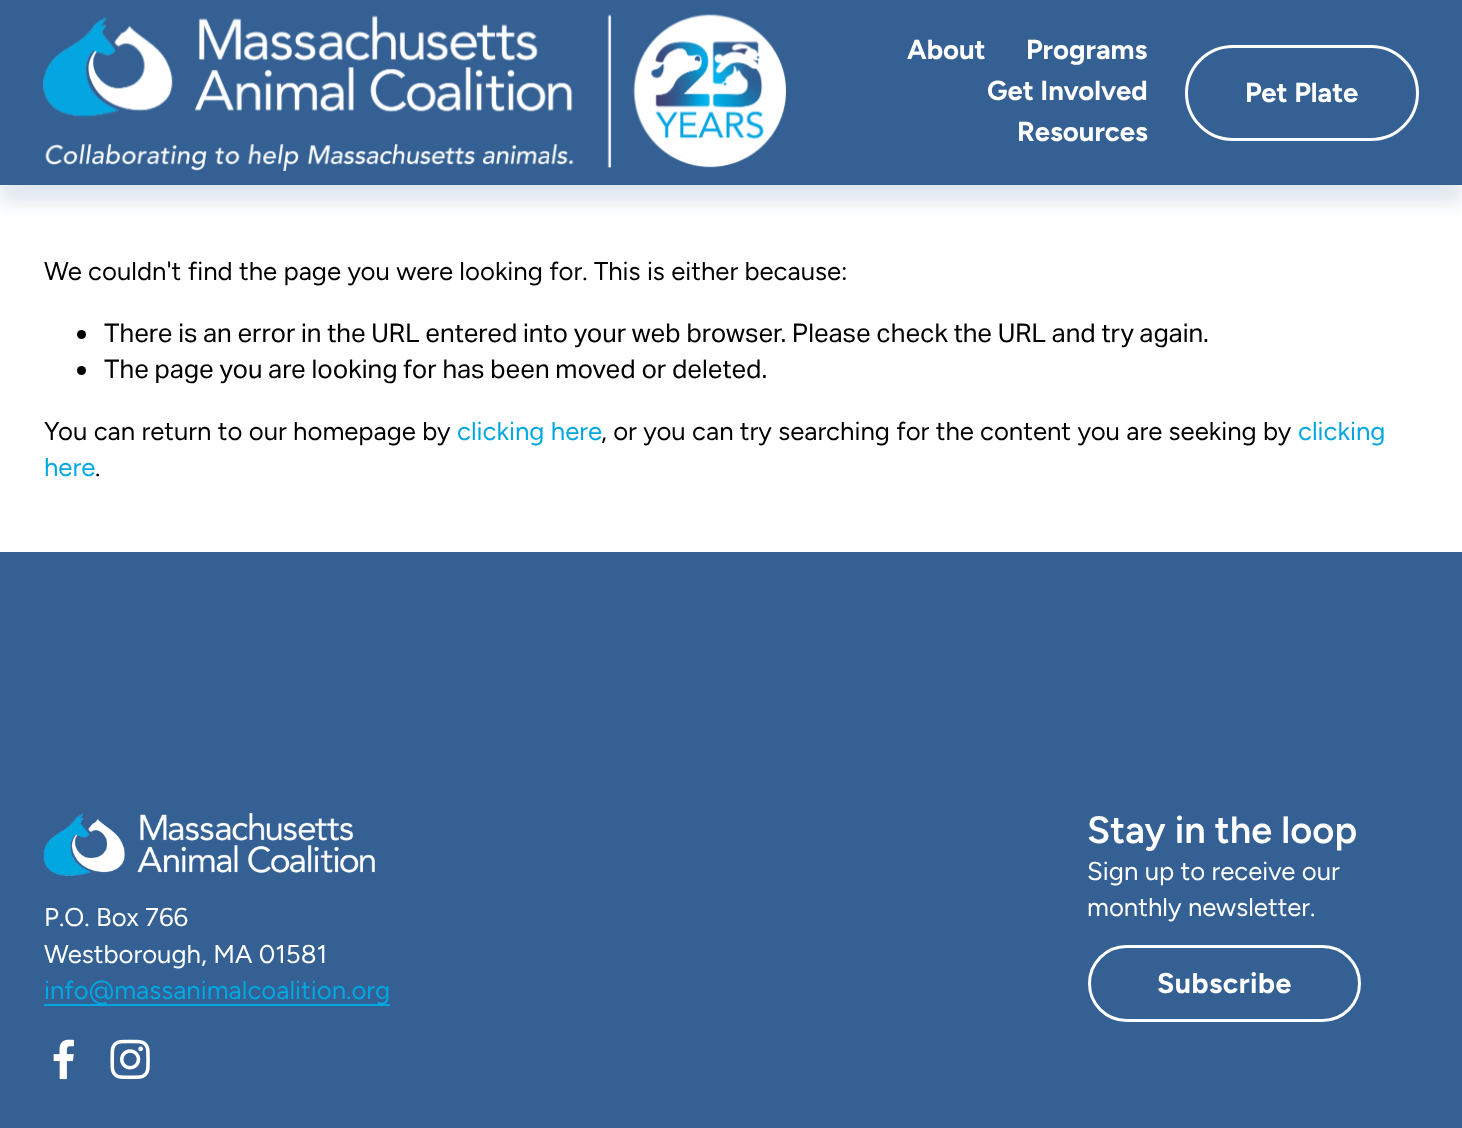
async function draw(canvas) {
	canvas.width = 1462;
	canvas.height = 1128;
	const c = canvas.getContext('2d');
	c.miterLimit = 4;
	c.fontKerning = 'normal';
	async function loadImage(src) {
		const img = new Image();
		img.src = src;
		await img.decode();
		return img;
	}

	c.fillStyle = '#fff';
	c.fillRect(0, 0, 1462, 1128);
	c.fillStyle = '#e1e7ef';
	c.filter = 'blur(9px)';
	c.beginPath();
	c.rect(0, 18, 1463, 185);
	c.fill();
	c.filter = 'none';
	c.fillStyle = '#346094';
	c.fillRect(0, 0, 1462, 185);
	c.drawImage(await loadImage('img1.png'), 43, 14, 743, 157);
	c.font = 'bold 27.5px Figtree';
	c.fillStyle = '#fff';
	for (const [text, x, y] of [
		['About', 907, 59],
		['Programs', 1026, 59],
		['Get Involved', 987, 100],
		['Resources', 1017, 141],
	]) {
		c.fillText(text, x, y);
	}
	c.beginPath();
	c.roundRect(1186.5, 46.5, 231, 93, 46.5);
	c.strokeStyle = '#fff';
	c.lineWidth = 3;
	c.stroke();
	c.fillText('Pet Plate', 1245, 102);
	c.font = '25.75px Figtree';
	c.fillStyle = '#000';
	c.fillText('We couldn\'t find the page you were looking for. This is either because:', 44, 280);
	c.beginPath();
	c.arc(81.5, 334.5, 4.5, 0, 2 * Math.PI);
	c.fill();
	c.font = '25.75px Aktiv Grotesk';
	c.fillText('There is an error in the URL entered into your web browser. Please check the URL and try again.', 104, 342);
	c.beginPath();
	c.arc(81.5, 370.5, 4.5, 0, 2 * Math.PI);
	c.fill();
	c.fillText('The page you are looking for has been moved or deleted.', 104, 378);
	c.font = '25.75px Figtree';
	c.fillText('You can return to our homepage by', 44, 440);
	c.fillStyle = '#00a7e1';
	c.fillText('clicking here', 457, 440);
	c.fillStyle = '#000';
	c.fillText(', or you can try searching for the', 601, 440);
	c.fillText('content you are seeking by', 980, 440);
	c.fillStyle = '#00a7e1';
	c.fillText('clicking', 1298, 440);
	c.fillText('here', 44, 476);
	c.fillStyle = '#000';
	c.fillText('.', 95, 476);
	c.fillStyle = '#346094';
	c.fillRect(0, 552, 1462, 576);
	c.drawImage(await loadImage('img2.png'), 43, 813, 332, 63);
	c.font = '600 38px Figtree';
	c.fillStyle = '#fff';
	c.fillText('Stay in the loop', 1087, 843);
	c.font = '25.75px Figtree';
	for (const [text, x, y] of [
		['Sign up to receive our', 1087, 880],
		['monthly newsletter.', 1087, 916],
		['P.O. Box 766', 44, 926],
		['Westborough, MA 01581', 44, 963],
	]) {
		c.fillText(text, x, y);
	}
	c.fillStyle = '#00a7e1';
	c.fillRect(44, 1004, 346, 2);
	c.fillText('info@massanimalcoalition.org', 44, 999);
	c.beginPath();
	c.roundRect(1089.5, 946.5, 270, 74, 37);
	c.stroke();
	c.letterSpacing = '0.5px';
	c.font = 'bold 28.5px Figtree';
	c.fillStyle = '#fff';
	c.fillText('Subscribe', 1157, 993);
	c.drawImage(await loadImage('img3.png'), 53, 1039, 21, 41);
	c.drawImage(await loadImage('img4.png'), 110, 1039, 40, 41);
}

draw(document.querySelector('canvas'));
